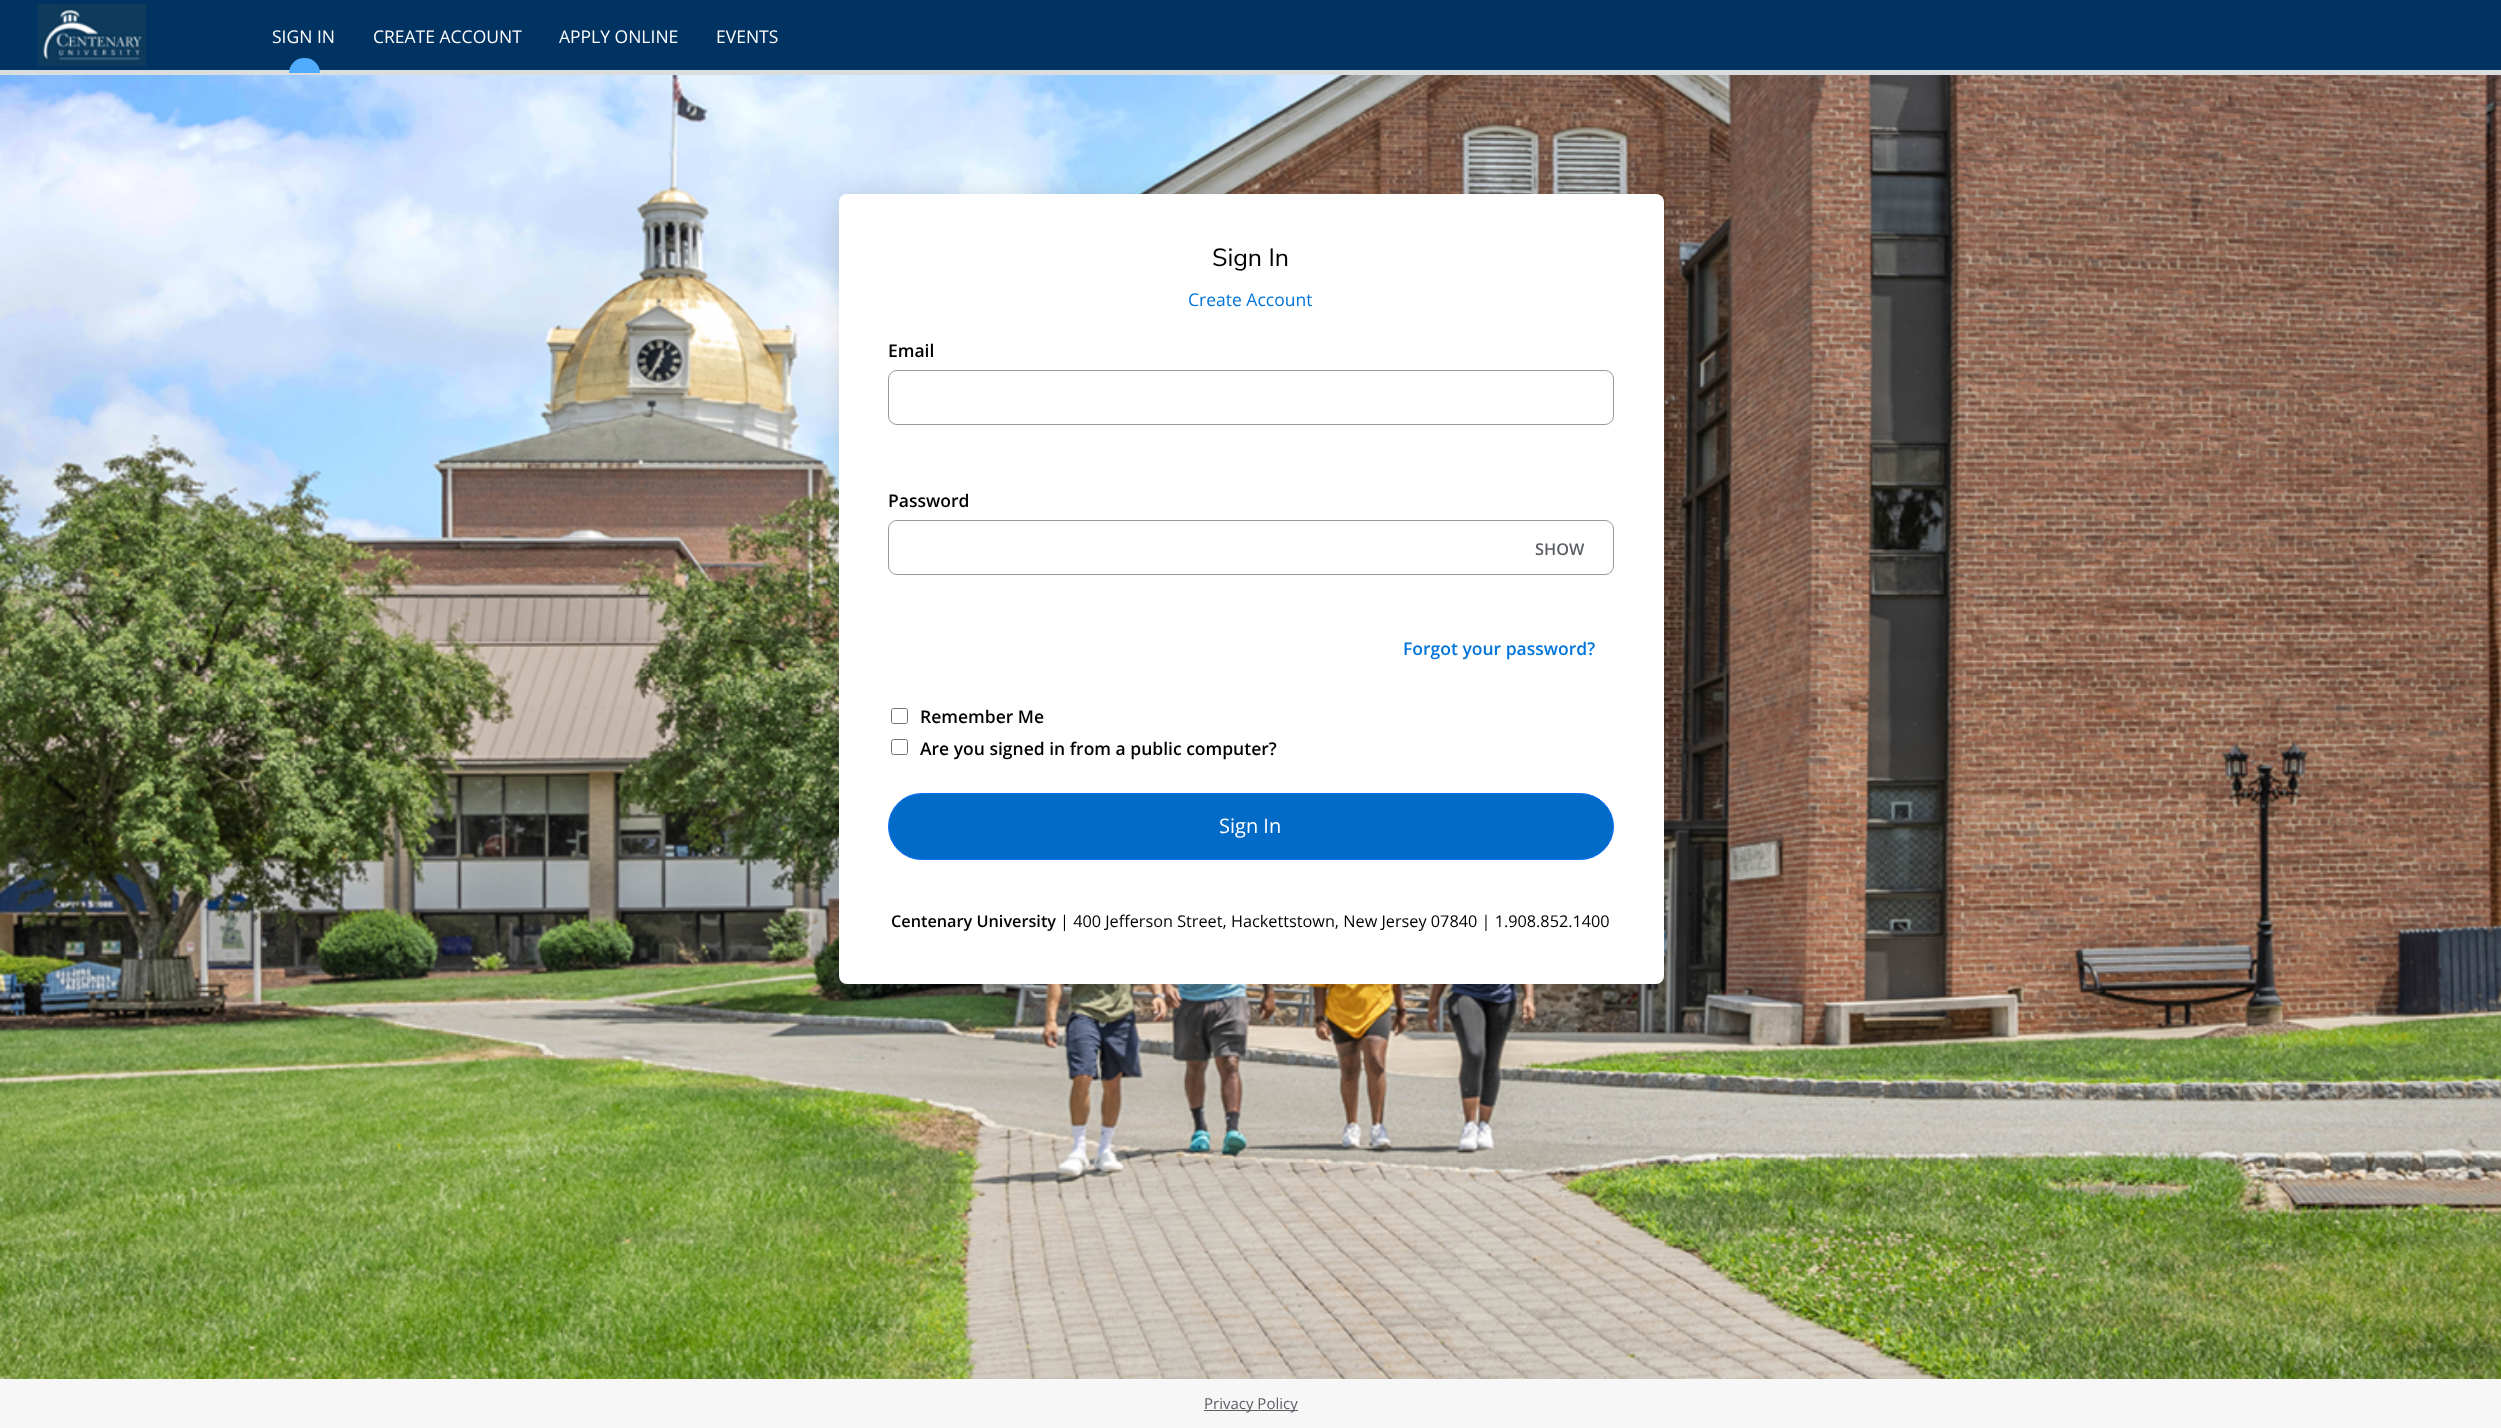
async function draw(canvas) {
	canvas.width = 2501;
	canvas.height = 1428;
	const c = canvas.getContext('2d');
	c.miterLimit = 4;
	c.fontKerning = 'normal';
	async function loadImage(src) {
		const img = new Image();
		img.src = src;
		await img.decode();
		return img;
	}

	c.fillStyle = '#f7f7f7';
	c.fillRect(0, 0, 2501, 1428);
	c.fillStyle = '#003262';
	c.fillRect(0, 0, 2501, 70);
	c.fillStyle = '#dbdcde';
	c.fillRect(0, 70, 2501, 5);
	c.drawImage(await loadImage('img1.png'), 37, 4, 110, 63);
	c.font = '17.5px Open Sans';
	c.fillStyle = '#fff';
	c.fillText('SIGN IN', 272, 43);
	c.fillStyle = '#51abff';
	c.beginPath();
	c.roundRect(289, 58, 31, 15, [15, 15, 0, 0]);
	c.fill();
	c.fillStyle = '#fff';
	for (const [text, x, y] of [
		['CREATE ACCOUNT', 373, 43],
		['APPLY ONLINE', 559, 43],
		['EVENTS', 716, 43],
	]) {
		c.fillText(text, x, y);
	}
	c.drawImage(await loadImage('img2.png'), 0, 75, 2501, 1304);
	c.fillStyle = '#0000001a';
	c.filter = 'blur(12.5px)';
	c.beginPath();
	c.roundRect(839, 194, 825, 790, 8);
	c.fill();
	c.filter = 'none';
	c.fillStyle = '#fff';
	c.beginPath();
	c.roundRect(839, 194, 825, 790, 8);
	c.fill();
	c.font = '25px Nunito Sans';
	c.fillStyle = '#000';
	c.fillText('Sign In', 1212, 266);
	c.font = '17.5px Open Sans';
	c.fillStyle = '#0074db';
	c.fillText('Create Account', 1188, 306);
	c.font = '600 17.5px Open Sans';
	c.fillStyle = '#000';
	c.fillText('Email', 888, 357);
	c.beginPath();
	c.roundRect(888.5, 370.5, 725, 54, 8.5);
	c.strokeStyle = '#999';
	c.stroke();
	c.fillText('Password', 888, 507);
	c.beginPath();
	c.roundRect(888.5, 520.5, 725, 54, 8.5);
	c.stroke();
	c.font = '600 16.25px Open Sans';
	c.fillStyle = '#5b5e65';
	c.fillText('SHOW', 1535, 555);
	c.font = '600 17.5px Open Sans';
	c.fillStyle = '#0074db';
	c.fillText('Forgot your password?', 1403, 655);
	c.beginPath();
	c.roundRect(891.5, 708.5, 16, 15, 2);
	c.strokeStyle = '#767676';
	c.stroke();
	c.fillStyle = '#000';
	c.fillText('Remember Me', 920, 723);
	c.beginPath();
	c.roundRect(891.5, 739.5, 16, 15, 2);
	c.stroke();
	c.fillText('Are you signed in from a public computer?', 920, 755);
	c.fillStyle = '#026bc8';
	c.beginPath();
	c.roundRect(888.5, 793.5, 725, 66, 33);
	c.fill();
	c.strokeStyle = '#0d6efd';
	c.stroke();
	c.font = '20px Open Sans';
	c.fillStyle = '#fff';
	c.fillText('Sign In', 1219, 833);
	c.font = '600 16.25px Open Sans';
	c.fillStyle = '#000';
	c.fillText('Centenary University', 891, 927);
	c.font = '16.25px Open Sans';
	c.fillText('| 400 Jefferson Street, Hackettstown, New Jersey 07840 | 1.908.852.1400', 1060, 927);
	c.fillStyle = '#5b5e65';
	c.fillRect(1204, 1410, 94, 1);
	c.font = '15px Open Sans';
	c.fillText('Privacy Policy', 1204, 1409);
}

draw(document.querySelector('canvas'));
